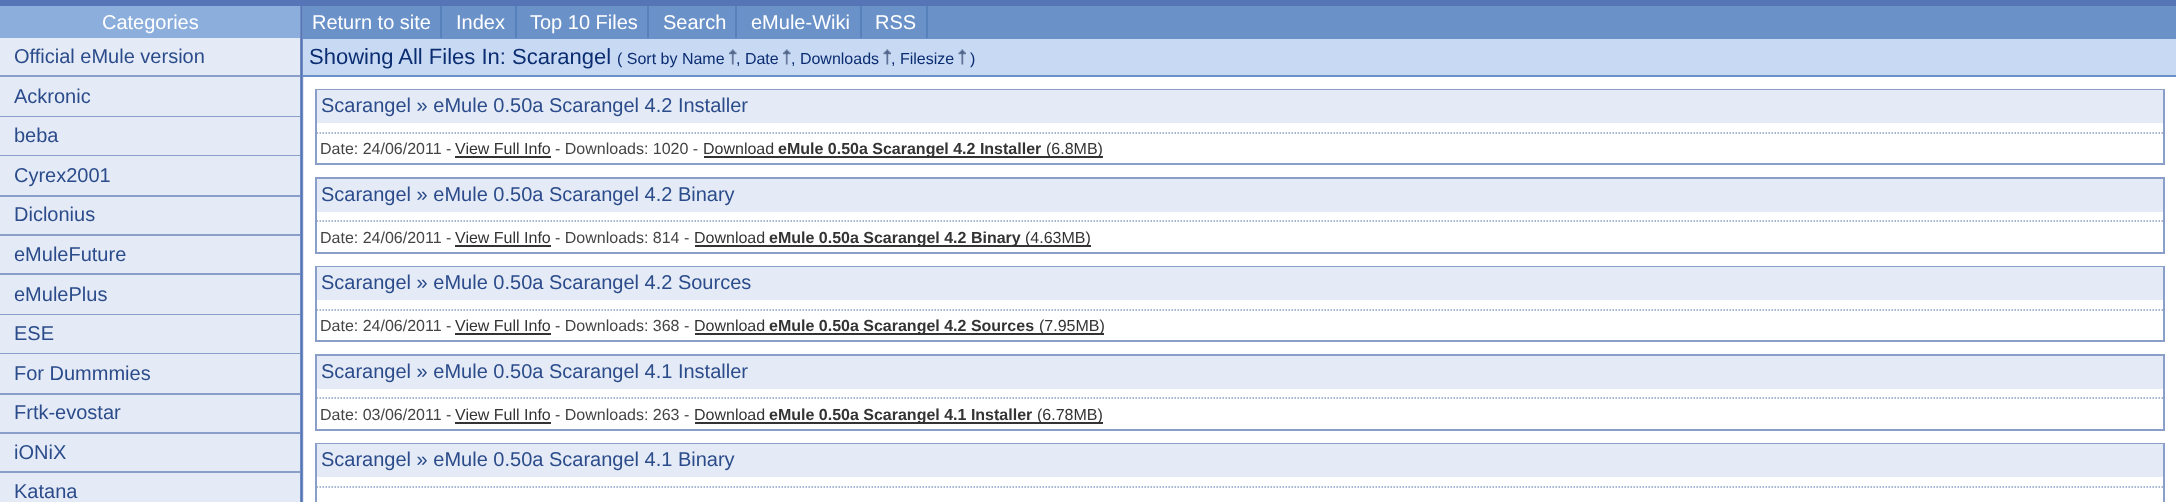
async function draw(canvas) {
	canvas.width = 2176;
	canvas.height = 502;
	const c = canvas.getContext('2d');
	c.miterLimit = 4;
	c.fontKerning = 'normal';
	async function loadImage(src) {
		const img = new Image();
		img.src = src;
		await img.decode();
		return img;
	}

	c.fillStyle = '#fff';
	c.fillRect(0, 0, 2176, 502);
	c.drawImage(await loadImage('img1.png'), 300, 6, 4, 496);
	c.fillStyle = '#8caedc';
	c.fillRect(0, 6, 300, 32);
	c.font = '20px Liberation Sans';
	c.fillStyle = '#fff';
	c.fillText('Categories', 102, 29);
	c.fillStyle = '#e4ebf6';
	c.fillRect(0, 38, 300, 37);
	c.fillStyle = '#899ec8';
	c.fillRect(0, 75, 300, 2);
	c.fillStyle = '#2b4b8b';
	c.fillText('Official eMule version', 14, 63);
	c.fillStyle = '#e4ebf6';
	c.fillRect(0, 77, 300, 39);
	c.fillStyle = '#899ec8';
	c.fillRect(0, 116, 300, 1);
	c.fillStyle = '#2b4b8b';
	c.fillText('Ackronic', 14, 103);
	c.fillStyle = '#e4ebf6';
	c.fillRect(0, 117, 300, 38);
	c.fillStyle = '#899ec8';
	c.fillRect(0, 155, 300, 1);
	c.fillStyle = '#2b4b8b';
	c.fillText('beba', 14, 142);
	c.fillStyle = '#e4ebf6';
	c.fillRect(0, 156, 300, 39);
	c.fillStyle = '#899ec8';
	c.fillRect(0, 195, 300, 2);
	c.fillStyle = '#2b4b8b';
	c.fillText('Cyrex2001', 14, 182);
	c.fillStyle = '#e4ebf6';
	c.fillRect(0, 197, 300, 37);
	c.fillStyle = '#899ec8';
	c.fillRect(0, 234, 300, 2);
	c.fillStyle = '#2b4b8b';
	c.fillText('Diclonius', 14, 221);
	c.fillStyle = '#e4ebf6';
	c.fillRect(0, 236, 300, 37);
	c.fillStyle = '#899ec8';
	c.fillRect(0, 273, 300, 2);
	c.fillStyle = '#2b4b8b';
	c.fillText('eMuleFuture', 14, 261);
	c.fillStyle = '#e4ebf6';
	c.fillRect(0, 275, 300, 39);
	c.fillStyle = '#899ec8';
	c.fillRect(0, 314, 300, 1);
	c.fillStyle = '#2b4b8b';
	c.fillText('eMulePlus', 14, 301);
	c.fillStyle = '#e4ebf6';
	c.fillRect(0, 315, 300, 38);
	c.fillStyle = '#899ec8';
	c.fillRect(0, 353, 300, 1);
	c.fillStyle = '#2b4b8b';
	c.fillText('ESE', 14, 340);
	c.fillStyle = '#e4ebf6';
	c.fillRect(0, 354, 300, 39);
	c.fillStyle = '#899ec8';
	c.fillRect(0, 393, 300, 2);
	c.fillStyle = '#2b4b8b';
	c.fillText('For Dummmies', 14, 380);
	c.fillStyle = '#e4ebf6';
	c.fillRect(0, 395, 300, 37);
	c.fillStyle = '#899ec8';
	c.fillRect(0, 432, 300, 2);
	c.fillStyle = '#2b4b8b';
	c.fillText('Frtk-evostar', 14, 419);
	c.fillStyle = '#e4ebf6';
	c.fillRect(0, 434, 300, 37);
	c.fillStyle = '#899ec8';
	c.fillRect(0, 471, 300, 2);
	c.fillStyle = '#2b4b8b';
	c.fillText('iONiX', 14, 459);
	c.fillStyle = '#e4ebf6';
	c.fillRect(0, 473, 300, 29);
	c.fillStyle = '#2b4b8b';
	c.fillText('Katana', 14, 498);
	c.fillStyle = '#5575b7';
	c.fillRect(0, 0, 2176, 6);
	c.fillStyle = '#6a92c9';
	c.fillRect(303, 6, 1873, 33);
	c.fillStyle = '#fff';
	c.fillText('Return to site', 312, 29);
	c.fillStyle = '#5781ba';
	c.fillRect(440, 6, 2, 32);
	c.fillStyle = '#fff';
	c.fillText('Index', 456, 29);
	c.fillStyle = '#5781ba';
	c.fillRect(515, 6, 2, 32);
	c.fillStyle = '#fff';
	c.fillText('Top 10 Files', 530, 29);
	c.fillStyle = '#5781ba';
	c.fillRect(647, 6, 2, 32);
	c.fillStyle = '#fff';
	c.fillText('Search', 663, 29);
	c.fillStyle = '#5781ba';
	c.fillRect(735, 6, 2, 32);
	c.fillStyle = '#fff';
	c.fillText('eMule-Wiki', 751, 29);
	c.fillStyle = '#5781ba';
	c.fillRect(860, 6, 2, 32);
	c.fillStyle = '#fff';
	c.fillText('RSS', 875, 29);
	for (const [x, y, w, h, color] of [
		[926, 6, 2, 32, '#5781ba'],
		[303, 39, 1873, 36, '#c8d9f3'],
		[303, 75, 1873, 2, '#6a92c9'],
	]) {
		c.fillStyle = color;
		c.fillRect(x, y, w, h);
	}
	c.font = '22px Liberation Sans';
	c.fillStyle = '#0a2c70';
	c.fillText('Showing All Files In: Scarangel', 309, 64);
	c.font = '16px Liberation Sans';
	c.fillText('( Sort by Name', 617, 64);
	c.drawImage(await loadImage('img2.png'), 729, 49, 8, 16);
	c.fillText(', Date', 736, 64);
	c.drawImage(await loadImage('img3.png'), 783, 49, 8, 16);
	c.fillText(', Downloads', 791, 64);
	c.drawImage(await loadImage('img4.png'), 883, 49, 8, 16);
	c.fillText(', Filesize', 891, 64);
	c.drawImage(await loadImage('img4.png'), 958, 49, 8, 16);
	c.fillText(')', 970, 64);
	c.strokeStyle = '#899ec8';
	c.lineWidth = 2;
	c.strokeRect(316, 90, 1848, 74);
	c.fillStyle = '#e4ebf6';
	c.fillRect(317, 90, 1846, 33);
	c.font = '20px Liberation Sans';
	c.fillStyle = '#2b4b8b';
	c.fillText('Scarangel » eMule 0.50a Scarangel 4.2 Installer', 321, 112);
	c.beginPath();
	c.moveTo(316.5, 133);
	c.lineTo(2163, 133);
	c.lineWidth = 1.5;
	c.setLineDash([1.5, 1.5]);
	c.stroke();
	c.font = '16px Liberation Sans';
	c.fillStyle = '#444';
	c.fillText('Date: 24/06/2011 -', 320, 154);
	c.fillStyle = '#333';
	c.fillText('View Full Info', 455, 154);
	c.fillRect(455, 156, 96, 2);
	c.fillStyle = '#444';
	c.fillText('- Downloads: 1020 -', 555, 154);
	c.fillStyle = '#333';
	c.fillText('Download', 703, 154);
	c.fillRect(704, 156, 337, 2);
	c.font = 'bold 16px Liberation Sans';
	c.fillText('eMule 0.50a Scarangel 4.2 Installer', 778, 154);
	c.fillRect(1041, 156, 62, 2);
	c.font = '16px Liberation Sans';
	c.fillText('(6.8MB)', 1046, 154);
	c.lineWidth = 2;
	c.setLineDash([]);
	c.strokeRect(316, 178, 1848, 75);
	c.fillStyle = '#e4ebf6';
	c.fillRect(317, 179, 1846, 33);
	c.font = '20px Liberation Sans';
	c.fillStyle = '#2b4b8b';
	c.fillText('Scarangel » eMule 0.50a Scarangel 4.2 Binary', 321, 201);
	c.beginPath();
	c.moveTo(316.5, 221);
	c.lineTo(2163, 221);
	c.lineWidth = 1.5;
	c.setLineDash([1.5, 1.5]);
	c.stroke();
	c.font = '16px Liberation Sans';
	c.fillStyle = '#444';
	c.fillText('Date: 24/06/2011 -', 320, 243);
	c.fillStyle = '#333';
	c.fillText('View Full Info', 455, 243);
	c.fillRect(455, 245, 96, 2);
	c.fillStyle = '#444';
	c.fillText('- Downloads: 814 -', 555, 243);
	c.fillStyle = '#333';
	c.fillText('Download', 694, 243);
	c.fillRect(695, 245, 396, 2);
	c.font = 'bold 16px Liberation Sans';
	c.fillText('eMule 0.50a Scarangel 4.2 Binary', 769, 243);
	c.font = '16px Liberation Sans';
	c.fillText('(4.63MB)', 1025, 243);
	c.lineWidth = 2;
	c.setLineDash([]);
	c.strokeRect(316, 267, 1848, 74);
	c.fillStyle = '#e4ebf6';
	c.fillRect(317, 267, 1846, 33);
	c.font = '20px Liberation Sans';
	c.fillStyle = '#2b4b8b';
	c.fillText('Scarangel » eMule 0.50a Scarangel 4.2 Sources', 321, 289);
	c.beginPath();
	c.moveTo(316.5, 310);
	c.lineTo(2163, 310);
	c.lineWidth = 1.5;
	c.setLineDash([1.5, 1.5]);
	c.stroke();
	c.font = '16px Liberation Sans';
	c.fillStyle = '#444';
	c.fillText('Date: 24/06/2011 -', 320, 331);
	c.fillStyle = '#333';
	c.fillText('View Full Info', 455, 331);
	c.fillRect(455, 333, 96, 2);
	c.fillStyle = '#444';
	c.fillText('- Downloads: 368 -', 555, 331);
	c.fillStyle = '#333';
	c.fillText('Download', 694, 331);
	c.fillRect(695, 333, 409, 2);
	c.font = 'bold 16px Liberation Sans';
	c.fillText('eMule 0.50a Scarangel 4.2 Sources', 769, 331);
	c.font = '16px Liberation Sans';
	c.fillText('(7.95MB)', 1039, 331);
	c.lineWidth = 2;
	c.setLineDash([]);
	c.strokeRect(316, 355, 1848, 75);
	c.fillStyle = '#e4ebf6';
	c.fillRect(317, 356, 1846, 33);
	c.font = '20px Liberation Sans';
	c.fillStyle = '#2b4b8b';
	c.fillText('Scarangel » eMule 0.50a Scarangel 4.1 Installer', 321, 378);
	c.beginPath();
	c.moveTo(316.5, 398);
	c.lineTo(2163, 398);
	c.lineWidth = 1.5;
	c.setLineDash([1.5, 1.5]);
	c.stroke();
	c.font = '16px Liberation Sans';
	c.fillStyle = '#444';
	c.fillText('Date: 03/06/2011 -', 320, 420);
	c.fillStyle = '#333';
	c.fillText('View Full Info', 455, 420);
	c.fillRect(455, 422, 96, 2);
	c.fillStyle = '#444';
	c.fillText('- Downloads: 263 -', 555, 420);
	c.fillStyle = '#333';
	c.fillText('Download', 694, 420);
	c.fillRect(695, 422, 337, 2);
	c.font = 'bold 16px Liberation Sans';
	c.fillText('eMule 0.50a Scarangel 4.1 Installer', 769, 420);
	c.fillRect(1032, 422, 71, 2);
	c.font = '16px Liberation Sans';
	c.fillText('(6.78MB)', 1037, 420);
	c.lineWidth = 2;
	c.setLineDash([]);
	c.strokeRect(316, 444, 1848, 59);
	c.fillStyle = '#e4ebf6';
	c.fillRect(317, 444, 1846, 33);
	c.font = '20px Liberation Sans';
	c.fillStyle = '#2b4b8b';
	c.fillText('Scarangel » eMule 0.50a Scarangel 4.1 Binary', 321, 466);
	c.beginPath();
	c.moveTo(316.5, 487);
	c.lineTo(2163, 487);
	c.lineWidth = 1.5;
	c.setLineDash([1.5, 1.5]);
	c.stroke();
}

draw(document.querySelector('canvas'));
